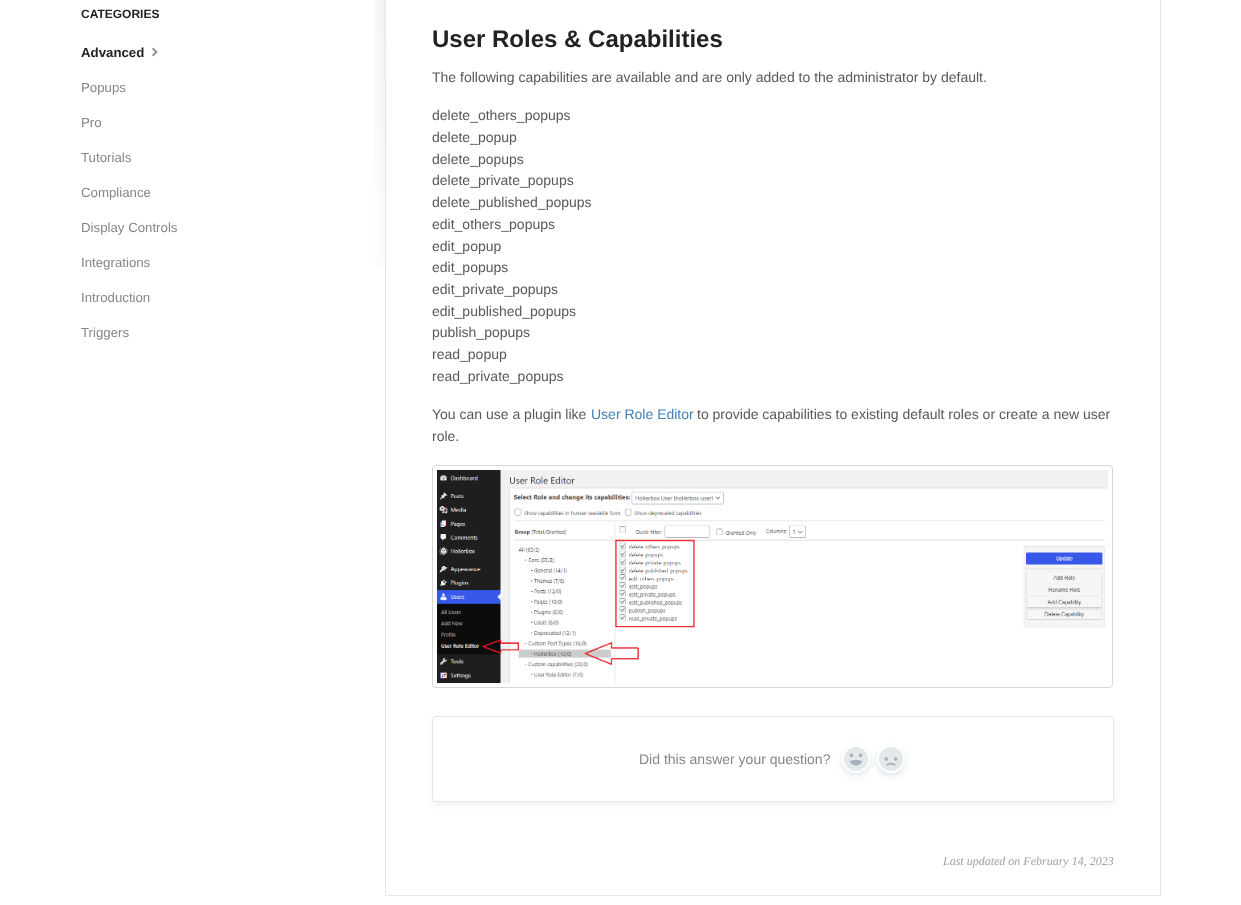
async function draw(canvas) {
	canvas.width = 1241;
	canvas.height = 905;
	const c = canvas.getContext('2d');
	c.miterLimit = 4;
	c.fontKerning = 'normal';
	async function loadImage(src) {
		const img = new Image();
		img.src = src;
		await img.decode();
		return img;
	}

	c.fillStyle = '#fff';
	c.fillRect(0, 0, 1241, 905);
	c.font = 'bold 12px Liberation Sans';
	c.fillStyle = '#222';
	c.fillText('CATEGORIES', 81, 18);
	c.font = 'bold 13.25px Liberation Sans';
	c.fillText('Advanced', 81, 57);
	c.drawImage(await loadImage('img1.png'), 152, 47, 6, 10);
	c.font = '13.25px Liberation Sans';
	c.fillStyle = '#858585';
	for (const [text, x, y] of [
		['Popups', 81, 92],
		['Pro', 81, 127],
		['Tutorials', 81, 162],
		['Compliance', 81, 197],
		['Display Controls', 81, 232],
		['Integrations', 81, 267],
		['Introduction', 81, 302],
		['Triggers', 81, 337],
	]) {
		c.fillText(text, x, y);
	}
	c.drawImage(await loadImage('img2.png'), 374, 0, 11, 266);
	c.strokeStyle = '#e9e5e5';
	c.strokeRect(385.5, -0.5, 775, 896);
	c.font = 'bold 24px Liberation Sans';
	c.fillStyle = '#222';
	c.fillText('User Roles & Capabilities', 432, 47);
	c.font = '14px Liberation Sans';
	c.fillStyle = '#585858';
	for (const [text, x, y] of [
		['The following capabilities are available and are only added to the administrator by default.', 432, 82],
		['delete_others_popups', 432, 120],
		['delete_popup', 432, 142],
		['delete_popups', 432, 164],
		['delete_private_popups', 432, 185],
		['delete_published_popups', 432, 207],
		['edit_others_popups', 432, 229],
		['edit_popup', 432, 251],
		['edit_popups', 432, 272],
		['edit_private_popups', 432, 294],
		['edit_published_popups', 432, 316],
		['publish_popups', 432, 337],
		['read_popup', 432, 359],
		['read_private_popups', 432, 381],
		['You can use a plugin like', 432, 419],
	]) {
		c.fillText(text, x, y);
	}
	c.fillStyle = '#4381b5';
	c.fillText('User Role Editor', 591, 419);
	c.fillStyle = '#585858';
	c.fillText('to provide capabilities to existing default roles or create a new user', 697, 419);
	c.fillText('role.', 432, 441);
	c.beginPath();
	c.roundRect(432.5, 465.5, 680, 222, 3.5);
	c.strokeStyle = '#d6d6d6';
	c.stroke();
	c.drawImage(await loadImage('img3.png'), 437, 470, 671, 213);
	c.fillStyle = '#0000000d';
	c.filter = 'blur(3px)';
	c.beginPath();
	c.roundRect(432, 719, 682, 86, 4);
	c.fill();
	c.filter = 'none';
	c.fillStyle = '#fff';
	c.beginPath();
	c.roundRect(432.5, 716.5, 681, 85, 3.5);
	c.fill();
	c.strokeStyle = '#e9e5e5';
	c.stroke();
	c.fillStyle = '#858585';
	c.fillText('Did this answer your question?', 639, 764);
	c.fillStyle = '#c1cbd480';
	c.filter = 'blur(3px)';
	c.beginPath();
	c.roundRect(842, 748, 28, 28, 14);
	c.fill();
	c.filter = 'none';
	c.fillStyle = '#e3e8eb';
	c.beginPath();
	c.arc(856, 759, 13, 0, 2 * Math.PI);
	c.fill();
	c.strokeStyle = '#fff';
	c.lineWidth = 2;
	c.stroke();
	c.drawImage(await loadImage('img4.png'), 849, 753, 14, 13);
	c.fillStyle = '#c1cbd480';
	c.filter = 'blur(3px)';
	c.beginPath();
	c.roundRect(877, 748, 28, 28, 14);
	c.fill();
	c.filter = 'none';
	c.fillStyle = '#e3e8eb';
	c.beginPath();
	c.arc(891, 759, 13, 0, 2 * Math.PI);
	c.fill();
	c.stroke();
	c.drawImage(await loadImage('img5.png'), 884, 757, 14, 9);
	c.font = 'italic 12px Liberation Serif';
	c.fillStyle = '#a0a0a0';
	c.fillText('Last updated on February 14, 2023', 943, 865);
}

draw(document.querySelector('canvas'));
